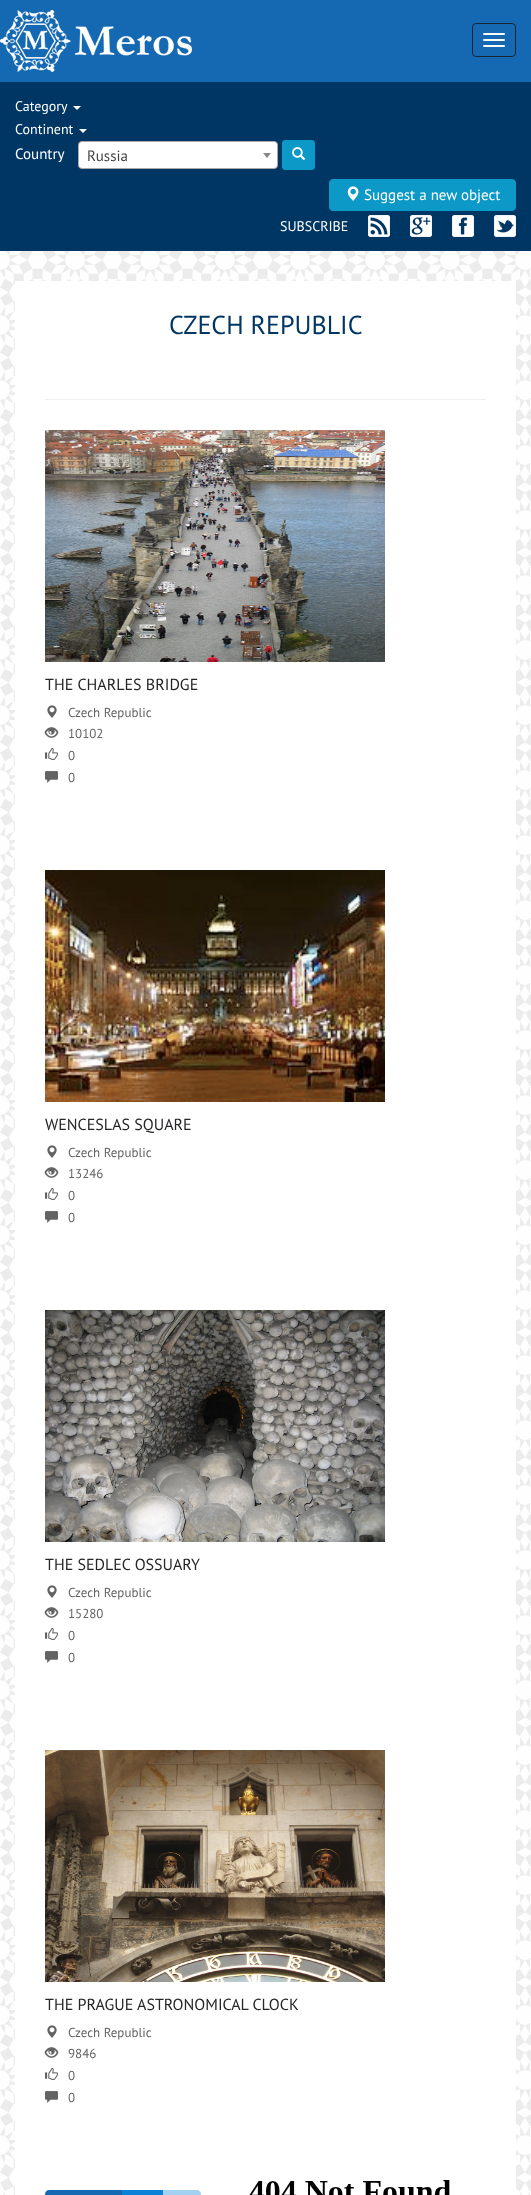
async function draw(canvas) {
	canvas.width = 531;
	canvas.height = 2195;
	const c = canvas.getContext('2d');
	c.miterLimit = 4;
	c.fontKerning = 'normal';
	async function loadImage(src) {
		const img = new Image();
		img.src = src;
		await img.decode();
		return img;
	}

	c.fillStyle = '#fff';
	c.fillRect(0, 0, 531, 2195);
	c.drawImage(await loadImage('img1.png'), 0, 251, 531, 1944);
	c.fillStyle = '#1569b2';
	c.fillRect(0, 0, 531, 82);
	c.drawImage(await loadImage('img2.png'), 0, 10, 192, 62);
	c.beginPath();
	c.roundRect(472.5, 23.5, 43, 33, 3.5);
	c.strokeStyle = '#1a242f';
	c.stroke();
	c.fillStyle = '#fff';
	c.beginPath();
	c.roundRect(483, 33, 22, 2, 1);
	c.fill();
	c.beginPath();
	c.roundRect(483, 39, 22, 2, 1);
	c.fill();
	c.beginPath();
	c.roundRect(483, 45, 22, 2, 1);
	c.fill();
	c.fillStyle = '#003663';
	c.fillRect(0, 82, 531, 169);
	c.font = '14px PT Sans';
	c.fillStyle = '#fff';
	c.fillText('Category', 15, 111);
	c.beginPath();
	c.moveTo(73, 106);
	c.lineTo(81, 106);
	c.lineTo(77, 110);
	c.closePath();
	c.fill();
	c.fillText('Continent', 15, 134);
	c.beginPath();
	c.moveTo(79, 129);
	c.lineTo(87, 129);
	c.lineTo(83, 133);
	c.closePath();
	c.fill();
	c.font = '15px PT Sans';
	c.fillText('Country', 15, 159);
	c.beginPath();
	c.roundRect(78.5, 141.5, 199, 27, 3.5);
	c.fill();
	c.strokeStyle = '#aaa';
	c.stroke();
	c.fillStyle = '#444';
	c.fillText('Russia', 87, 161);
	c.fillStyle = '#888';
	c.beginPath();
	c.moveTo(263, 153);
	c.lineTo(271, 153);
	c.lineTo(267, 158);
	c.closePath();
	c.fill();
	c.fillStyle = '#0c99c8';
	c.beginPath();
	c.roundRect(282.5, 140.5, 32, 29, 2.5);
	c.fill();
	c.strokeStyle = '#0c99c8';
	c.stroke();
	c.drawImage(await loadImage('img3.png'), 292, 147, 14, 13);
	c.beginPath();
	c.roundRect(329.5, 179.5, 186, 31, 3.5);
	c.fill();
	c.stroke();
	c.drawImage(await loadImage('img4.png'), 347, 186, 12, 15);
	c.fillStyle = '#fff';
	c.fillText('Suggest a new object', 364, 200);
	c.font = '14px PT Sans';
	c.fillText('SUBSCRIBE', 280, 231);
	c.drawImage(await loadImage('img5.png'), 368, 215, 22, 22);
	c.drawImage(await loadImage('img6.png'), 410, 215, 22, 22);
	c.drawImage(await loadImage('img7.png'), 452, 215, 22, 22);
	c.drawImage(await loadImage('img8.png'), 494, 215, 22, 22);
	c.fillRect(15, 281, 501, 1914);
	c.font = '26px PT Sans';
	c.fillStyle = '#003663';
	c.fillText('CZECH REPUBLIC', 169, 334);
	c.fillStyle = '#ecf0f1';
	c.fillRect(45, 399, 441, 1);
	c.drawImage(await loadImage('img9.png'), 45, 430, 340, 232);
	c.font = '16px PT Sans';
	c.fillStyle = '#272527';
	c.fillText('THE CHARLES BRIDGE', 45, 690);
	c.drawImage(await loadImage('img10.png'), 47, 705, 10, 13);
	c.font = '13px PT Sans';
	c.fillStyle = '#646464';
	c.fillText('Czech Republic', 68, 717);
	c.drawImage(await loadImage('img11.png'), 44, 727, 15, 11);
	c.fillText('10102', 68, 738);
	c.drawImage(await loadImage('img12.png'), 45, 748, 13, 12);
	c.fillText('0', 68, 760);
	c.drawImage(await loadImage('img13.png'), 45, 771, 13, 12);
	c.fillText('0', 68, 782);
	c.drawImage(await loadImage('img14.png'), 45, 870, 340, 232);
	c.font = '16px PT Sans';
	c.fillStyle = '#272527';
	c.fillText('WENCESLAS SQUARE', 45, 1130);
	c.drawImage(await loadImage('img10.png'), 47, 1145, 10, 13);
	c.font = '13px PT Sans';
	c.fillStyle = '#646464';
	c.fillText('Czech Republic', 68, 1157);
	c.drawImage(await loadImage('img11.png'), 44, 1167, 15, 11);
	c.fillText('13246', 68, 1178);
	c.drawImage(await loadImage('img12.png'), 45, 1188, 13, 12);
	c.fillText('0', 68, 1200);
	c.drawImage(await loadImage('img13.png'), 45, 1211, 13, 12);
	c.fillText('0', 68, 1222);
	c.drawImage(await loadImage('img15.png'), 45, 1310, 340, 232);
	c.font = '16px PT Sans';
	c.fillStyle = '#272527';
	c.fillText('THE SEDLEC OSSUARY', 45, 1570);
	c.drawImage(await loadImage('img10.png'), 47, 1585, 10, 13);
	c.font = '13px PT Sans';
	c.fillStyle = '#646464';
	c.fillText('Czech Republic', 68, 1597);
	c.drawImage(await loadImage('img11.png'), 44, 1607, 15, 11);
	c.fillText('15280', 68, 1618);
	c.drawImage(await loadImage('img12.png'), 45, 1628, 13, 12);
	c.fillText('0', 68, 1640);
	c.drawImage(await loadImage('img13.png'), 45, 1651, 13, 12);
	c.fillText('0', 68, 1662);
	c.drawImage(await loadImage('img16.png'), 45, 1750, 340, 232);
	c.font = '16px PT Sans';
	c.fillStyle = '#272527';
	c.fillText('THE PRAGUE ASTRONOMICAL CLOCK', 45, 2010);
	c.drawImage(await loadImage('img10.png'), 47, 2025, 10, 13);
	c.font = '13px PT Sans';
	c.fillStyle = '#646464';
	c.fillText('Czech Republic', 68, 2037);
	c.drawImage(await loadImage('img11.png'), 44, 2047, 15, 11);
	c.fillText('9846', 68, 2058);
	c.drawImage(await loadImage('img12.png'), 45, 2068, 13, 12);
	c.fillText('0', 68, 2080);
	c.drawImage(await loadImage('img13.png'), 45, 2091, 13, 12);
	c.fillText('0', 68, 2102);
	c.fillStyle = '#1569b2';
	c.beginPath();
	c.moveTo(49, 2190);
	c.lineTo(84, 2190);
	c.lineTo(84, 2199);
	c.lineTo(49, 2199);
	c.bezierCurveTo(47, 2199, 45, 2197, 45, 2195);
	c.lineTo(45, 2194);
	c.bezierCurveTo(45, 2192, 47, 2190, 49, 2190);
	c.closePath();
	c.fill();
	c.fillRect(83, 2190, 40, 5);
	c.fillStyle = '#a2d1f2';
	c.beginPath();
	c.moveTo(162, 2190);
	c.lineTo(197, 2190);
	c.bezierCurveTo(199, 2190, 201, 2192, 201, 2194);
	c.lineTo(201, 2195);
	c.bezierCurveTo(201, 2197, 199, 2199, 197, 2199);
	c.lineTo(162, 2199);
	c.closePath();
	c.fill();
	c.fillStyle = '#0982d8';
	c.fillRect(122, 2190, 41, 5);
	c.drawImage(await loadImage('img17.png'), 249, 2180, 201, 15);
}

draw(document.querySelector('canvas'));
